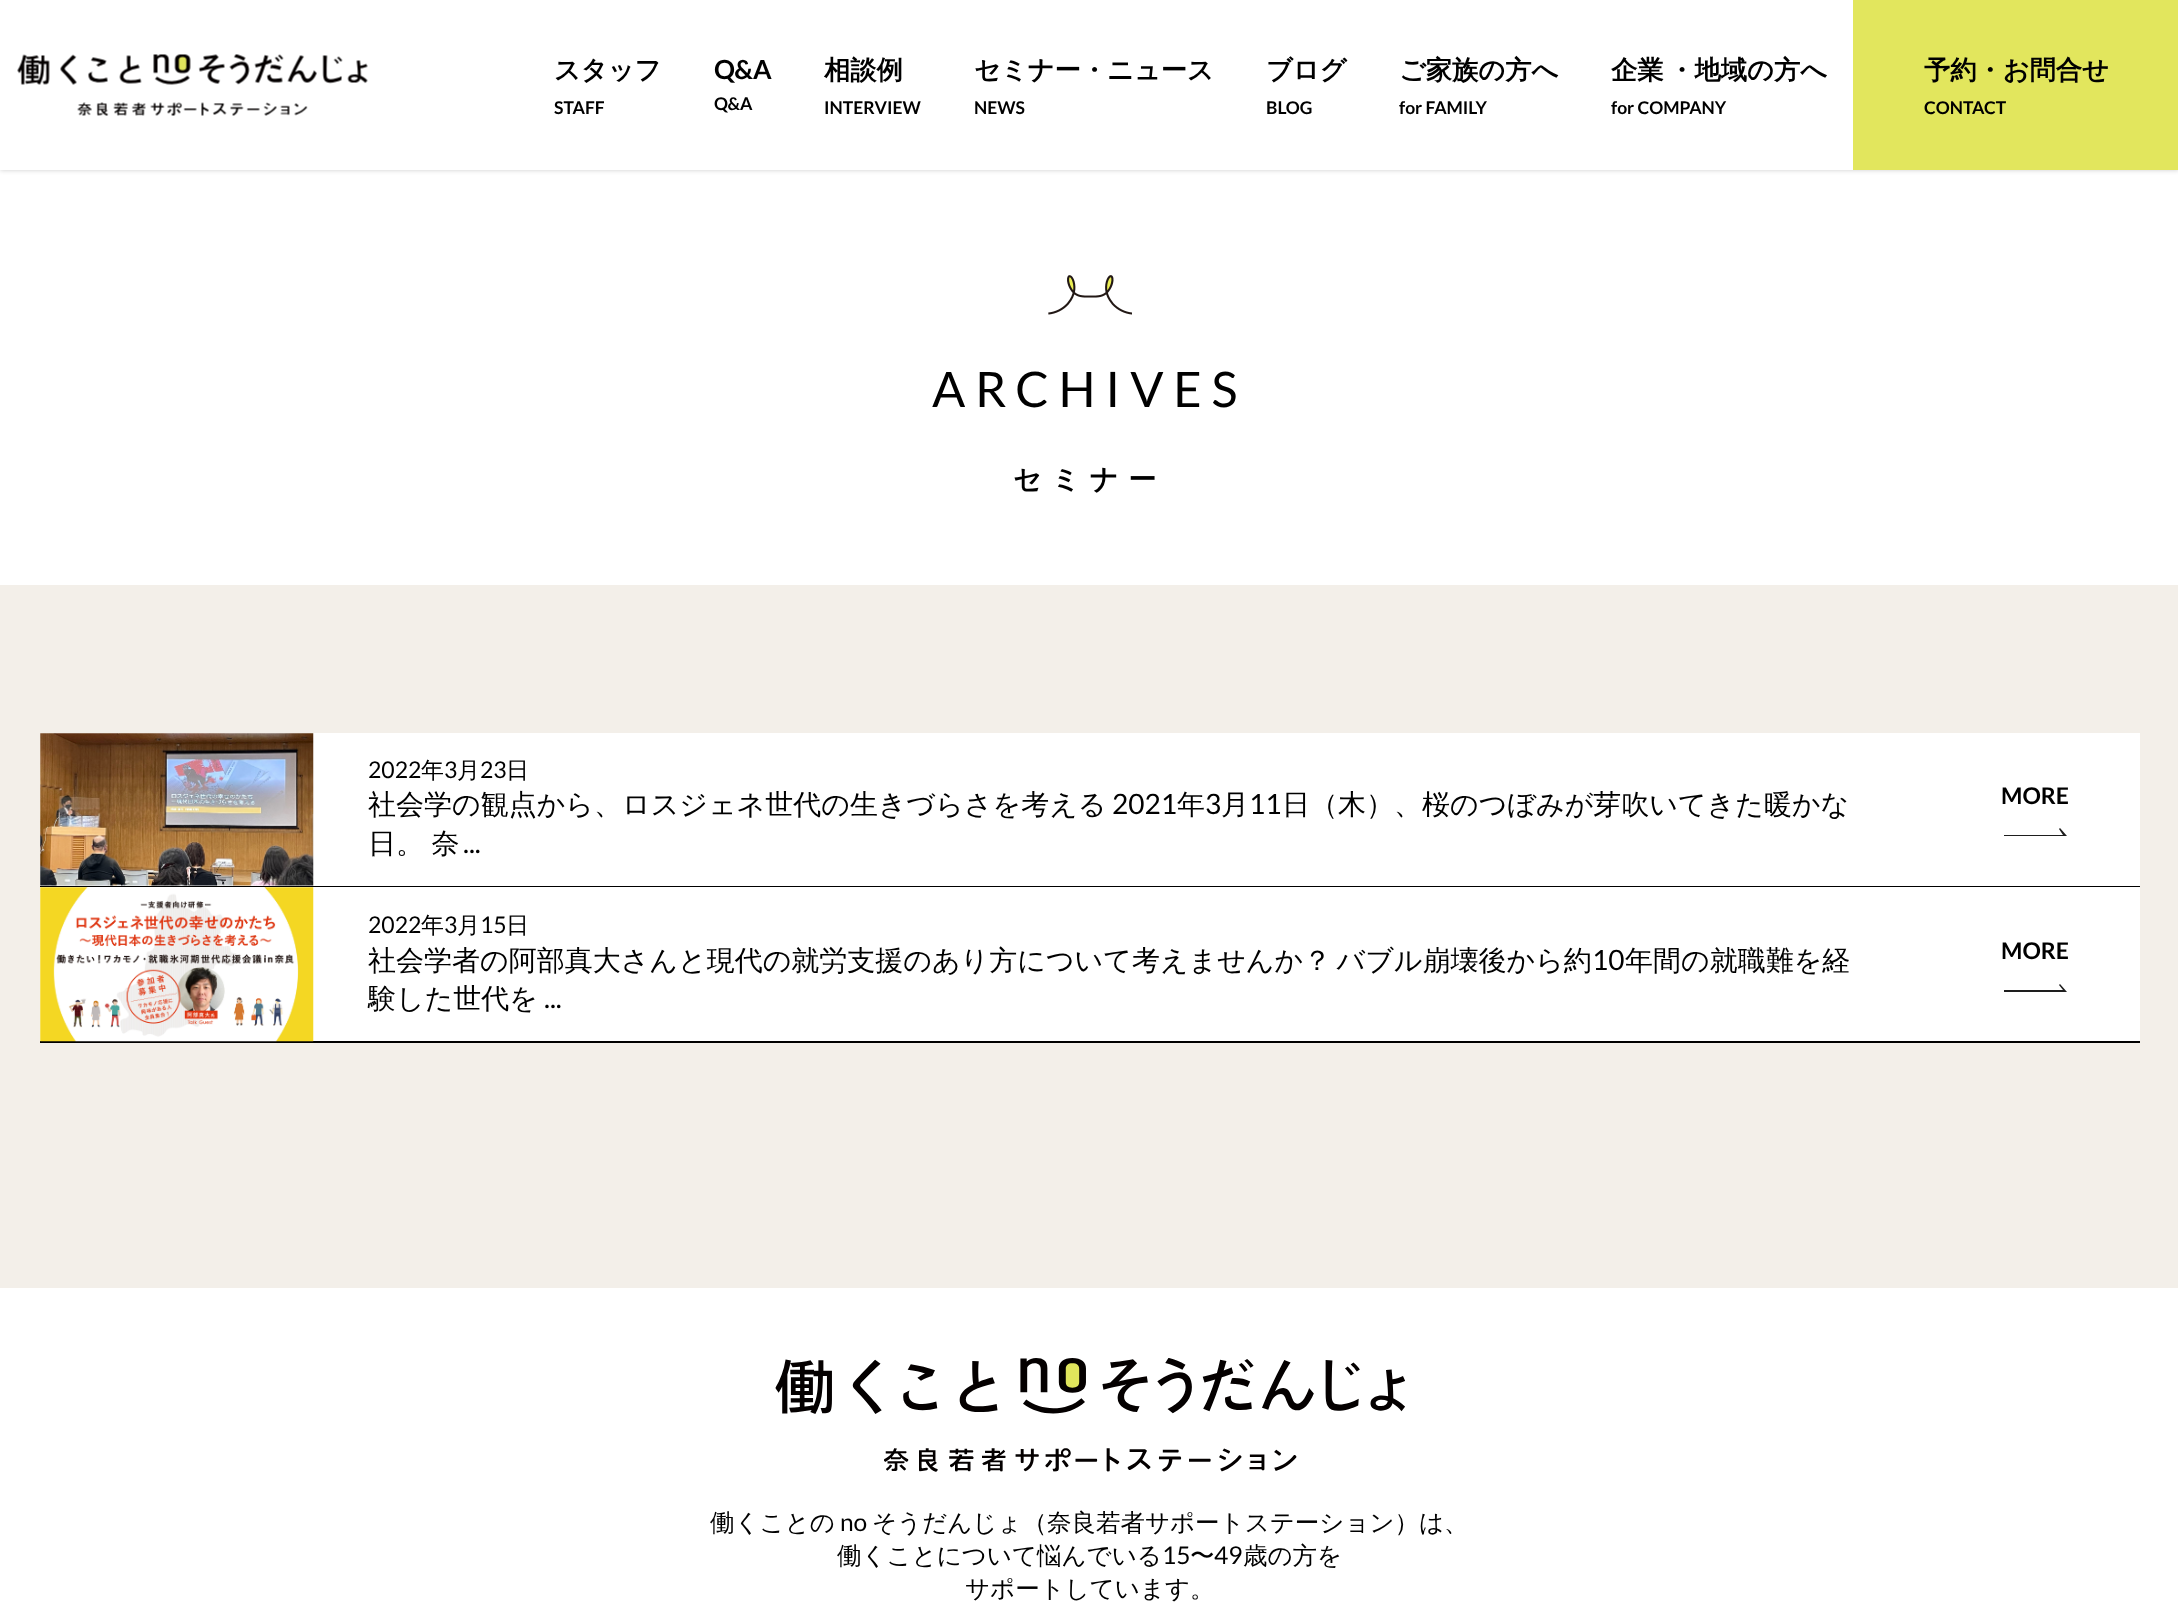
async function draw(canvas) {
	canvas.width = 2178;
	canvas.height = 1603;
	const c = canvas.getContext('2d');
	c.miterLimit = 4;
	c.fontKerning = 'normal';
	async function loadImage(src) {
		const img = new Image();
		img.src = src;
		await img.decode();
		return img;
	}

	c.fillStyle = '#fff';
	c.fillRect(0, 0, 2178, 1603);
	c.fillStyle = '#00000033';
	c.filter = 'blur(2.5px)';
	c.beginPath();
	c.rect(0, 0, 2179, 170);
	c.fill();
	c.filter = 'none';
	c.fillStyle = '#fff';
	c.fillRect(0, 0, 1853, 170);
	c.drawImage(await loadImage('img1.png'), 17, 54, 351, 62);
	c.font = 'bold 26.25px WenQuanYi Zen Hei';
	c.fillStyle = '#000';
	c.fillText('スタッフ', 554, 79);
	c.font = 'bold 17.5px Lato';
	c.fillText('STAFF', 554, 114);
	c.font = 'bold 26.25px Lato';
	c.fillText('Q&A', 714, 79);
	c.font = 'bold 17.5px Lato';
	c.fillText('Q&A', 714, 110);
	c.font = 'bold 26.25px WenQuanYi Zen Hei';
	c.fillText('相談例', 824, 79);
	c.font = 'bold 17.5px Lato';
	c.fillText('INTERVIEW', 824, 114);
	c.font = 'bold 26.25px WenQuanYi Zen Hei';
	c.fillText('セミナー・ニュース', 974, 79);
	c.font = 'bold 17.5px Lato';
	c.fillText('NEWS', 974, 114);
	c.font = 'bold 26.25px WenQuanYi Zen Hei';
	c.fillText('ブログ', 1266, 79);
	c.font = 'bold 17.5px Lato';
	c.fillText('BLOG', 1266, 114);
	c.font = 'bold 26.25px WenQuanYi Zen Hei';
	c.fillText('ご家族の方へ', 1399, 79);
	c.font = 'bold 17.5px Lato';
	c.fillText('for FAMILY', 1399, 114);
	c.wordSpacing = '-3px';
	c.font = 'bold 26.25px WenQuanYi Zen Hei';
	c.fillText('企業 ・地域の方へ', 1611, 79);
	c.wordSpacing = '0px';
	c.font = 'bold 17.5px Lato';
	c.fillText('for COMPANY', 1611, 114);
	c.fillStyle = '#e2e65d';
	c.fillRect(1853, 0, 325, 170);
	c.font = 'bold 26.25px WenQuanYi Zen Hei';
	c.fillStyle = '#000';
	c.fillText('予約・お問合せ', 1924, 79);
	c.font = 'bold 17.5px Lato';
	c.fillText('CONTACT', 1924, 114);
	c.drawImage(await loadImage('img2.png'), 1048, 275, 84, 40);
	c.letterSpacing = '9.75px';
	c.font = '49px Lato';
	c.fillText('ARCHIVES', 932, 407);
	c.font = 'bold 28px WenQuanYi Zen Hei';
	c.fillText('セミナー', 1013, 489);
	for (const [x, y, w, h, color] of [
		[0, 585, 2178, 703, '#f3efe9'],
		[40, 886, 2100, 1, '#000'],
		[40, 733, 2100, 153, '#fff'],
	]) {
		c.fillStyle = color;
		c.fillRect(x, y, w, h);
	}
	c.drawImage(await loadImage('img3.png'), 40, 733, 274, 153);
	c.letterSpacing = '0px';
	c.font = '23px Lato';
	c.fillStyle = '#000';
	c.fillText('2022', 368, 778);
	c.font = '500 23px WenQuanYi Zen Hei';
	c.fillText('年', 421, 778);
	c.font = '23px Lato';
	c.fillText('3', 444, 778);
	c.font = '500 23px WenQuanYi Zen Hei';
	c.fillText('月', 457, 778);
	c.font = '23px Lato';
	c.fillText('23', 480, 778);
	c.font = '500 23px WenQuanYi Zen Hei';
	c.fillText('日', 506, 778);
	c.font = '500 28px WenQuanYi Zen Hei';
	c.fillText('社会学の観点から、ロスジェネ世代の生きづらさを考える', 368, 814);
	c.font = '28px Lato';
	c.fillText('2021', 1112, 814);
	c.font = '500 28px WenQuanYi Zen Hei';
	c.fillText('年', 1177, 814);
	c.font = '28px Lato';
	c.fillText('3', 1205, 814);
	c.font = '500 28px WenQuanYi Zen Hei';
	c.fillText('月', 1221, 814);
	c.font = '28px Lato';
	c.fillText('11', 1249, 814);
	c.font = '500 28px WenQuanYi Zen Hei';
	c.fillText('日（木）、桜のつぼみが芽吹いてきた暖かな', 1282, 814);
	c.wordSpacing = '-1px';
	c.fillText('日。 奈', 368, 853);
	c.wordSpacing = '0px';
	c.font = '28px Lato';
	c.fillText('...', 463, 853);
	c.font = 'bold 23px Lato';
	c.fillText('MORE', 2001, 804);
	c.fillStyle = '#1e1e1e';
	c.beginPath();
	c.moveTo(2067, 836);
	c.lineTo(2004, 836);
	c.lineTo(2004, 835);
	c.lineTo(2063, 835);
	c.lineTo(2059, 829);
	c.lineTo(2060, 828);
	c.closePath();
	c.fill();
	c.fillStyle = '#000';
	c.fillRect(40, 1041, 2100, 2);
	c.fillStyle = '#fff';
	c.fillRect(40, 887, 2100, 154);
	c.drawImage(await loadImage('img4.png'), 40, 887, 274, 155);
	c.font = '23px Lato';
	c.fillStyle = '#000';
	c.fillText('2022', 368, 933);
	c.font = '500 23px WenQuanYi Zen Hei';
	c.fillText('年', 421, 933);
	c.font = '23px Lato';
	c.fillText('3', 444, 933);
	c.font = '500 23px WenQuanYi Zen Hei';
	c.fillText('月', 457, 933);
	c.font = '23px Lato';
	c.fillText('15', 480, 933);
	c.font = '500 23px WenQuanYi Zen Hei';
	c.fillText('日', 506, 933);
	c.wordSpacing = '-3px';
	c.font = '500 28px WenQuanYi Zen Hei';
	c.fillText('社会学者の阿部真大さんと現代の就労支援のあり方について考えませんか？ バブル崩壊後から約', 368, 970);
	c.wordSpacing = '0px';
	c.font = '28px Lato';
	c.fillText('10', 1592, 970);
	c.font = '500 28px WenQuanYi Zen Hei';
	c.fillText('年間の就職難を経', 1625, 970);
	c.fillText('験した世代を', 368, 1008);
	c.font = '28px Lato';
	c.fillText('...', 544, 1008);
	c.font = 'bold 23px Lato';
	c.fillText('MORE', 2001, 959);
	c.fillStyle = '#1e1e1e';
	c.beginPath();
	c.moveTo(2067, 992);
	c.lineTo(2004, 992);
	c.lineTo(2004, 990);
	c.lineTo(2063, 990);
	c.lineTo(2059, 985);
	c.lineTo(2060, 984);
	c.closePath();
	c.fill();
	c.drawImage(await loadImage('img5.png'), 775, 1358, 630, 114);
	c.font = '500 24.5px WenQuanYi Zen Hei';
	c.fillStyle = '#000';
	c.fillText('働くことの', 710, 1531);
	c.font = '24.5px Lato';
	c.fillText('no', 840, 1531);
	c.font = '500 24.5px WenQuanYi Zen Hei';
	c.fillText('そうだんじょ（奈良若者サポートステーション）は、', 872, 1531);
	c.fillText('働くことについて悩んでいる', 837, 1564);
	c.font = '24.5px Lato';
	c.fillText('15', 1162, 1564);
	c.font = '500 24.5px WenQuanYi Zen Hei';
	c.fillText('〜', 1190, 1564);
	c.font = '24.5px Lato';
	c.fillText('49', 1214, 1564);
	c.font = '500 24.5px WenQuanYi Zen Hei';
	c.fillText('歳の方を', 1243, 1564);
	c.fillText('サポートしています。', 965, 1597);
}

draw(document.querySelector('canvas'));
